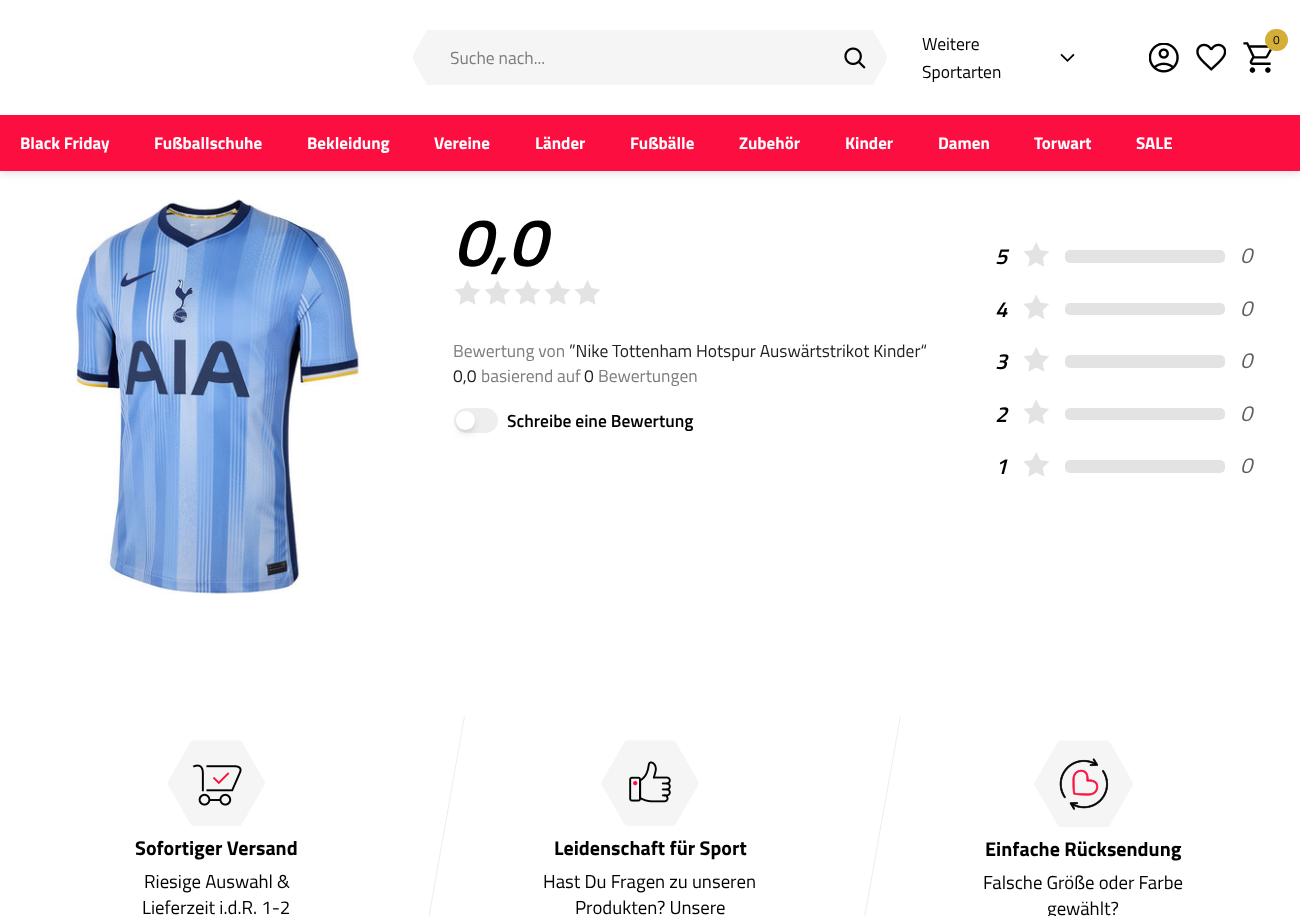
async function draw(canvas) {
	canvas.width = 1300;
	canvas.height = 916;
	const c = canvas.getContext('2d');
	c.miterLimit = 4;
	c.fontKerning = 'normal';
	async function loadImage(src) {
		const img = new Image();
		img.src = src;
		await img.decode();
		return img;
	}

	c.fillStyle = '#fff';
	c.fillRect(0, 0, 1300, 916);
	c.fillStyle = '#3a051026';
	c.filter = 'blur(4px)';
	c.beginPath();
	c.rect(0, 1, 1300, 172);
	c.fill();
	c.filter = 'none';
	c.fillStyle = '#fff';
	c.fillRect(0, 0, 1300, 115);
	c.save();
	c.beginPath();
	c.rect(869, 30, 19, 55);
	c.clip();
	c.fillStyle = '#f5f5f5';
	c.beginPath();
	c.moveTo(869, 29);
	c.bezierCurveTo(874, 29, 876, 36, 878, 39);
	c.bezierCurveTo(890, 61, 890, 54, 878, 76);
	c.bezierCurveTo(876, 79, 874, 86, 869, 86);
	c.closePath();
	c.fill();
	c.restore();
	c.save();
	c.beginPath();
	c.rect(413, 30, 18, 55);
	c.clip();
	c.fillStyle = '#f5f5f5';
	c.beginPath();
	c.moveTo(431, 29);
	c.bezierCurveTo(426, 29, 424, 36, 422, 39);
	c.bezierCurveTo(410, 61, 410, 54, 422, 76);
	c.bezierCurveTo(424, 79, 426, 86, 431, 86);
	c.closePath();
	c.fill();
	c.restore();
	c.fillStyle = '#f5f5f5';
	c.fillRect(431, 30, 438, 55);
	c.font = '17.5px Titillium Web';
	c.fillStyle = '#7c7c7c';
	c.fillText('Suche nach...', 450, 64);
	c.drawImage(await loadImage('img1.png'), 844, 47, 22, 22);
	c.drawImage(await loadImage('img2.png'), 1060, 53, 15, 9);
	c.fillStyle = '#000';
	c.fillText('Weitere', 922, 50);
	c.fillText('Sportarten', 922, 78);
	c.drawImage(await loadImage('img3.png'), 1243, 42, 29, 31);
	c.fillStyle = '#d4af37';
	c.beginPath();
	c.roundRect(1265, 29, 23, 22, 11);
	c.fill();
	c.font = '12px Titillium Web';
	c.fillStyle = '#000';
	c.fillText('0', 1273, 44);
	c.drawImage(await loadImage('img4.png'), 1149, 43, 30, 30);
	c.drawImage(await loadImage('img5.png'), 1196, 43, 30, 28);
	c.fillStyle = '#fc0f40';
	c.fillRect(0, 115, 1300, 56);
	c.font = 'bold 17px Titillium Web';
	c.fillStyle = '#fff';
	for (const [text, x, y] of [
		['Black Friday', 20, 149],
		['Fußballschuhe', 154, 149],
		['Bekleidung', 307, 149],
		['Vereine', 434, 149],
		['Länder', 535, 149],
		['Fußbälle', 630, 149],
		['Zubehör', 739, 149],
		['Kinder', 845, 149],
		['Damen', 938, 149],
		['Torwart', 1034, 149],
		['SALE', 1136, 149],
	]) {
		c.fillText(text, x, y);
	}
	c.drawImage(await loadImage('img6.png'), 74, 199, 288, 395);
	c.font = 'italic 600 68px Titillium Web';
	c.fillStyle = '#000';
	c.fillText('0,0', 453, 266);
	c.drawImage(await loadImage('img7.png'), 454, 280, 147, 25);
	c.font = '17.5px Titillium Web';
	c.fillStyle = '#7c7c7c';
	c.fillText('Bewertung von', 453, 357);
	c.fillStyle = '#212121';
	c.fillText('”Nike Tottenham Hotspur Auswärtstrikot Kinder“', 569, 357);
	c.fillText('0,0', 453, 382);
	c.fillStyle = '#7c7c7c';
	c.fillText('basierend auf', 481, 382);
	c.fillStyle = '#212121';
	c.fillText('0', 584, 382);
	c.fillStyle = '#7c7c7c';
	c.fillText('Bewertungen', 598, 382);
	c.fillStyle = '#eee';
	c.beginPath();
	c.roundRect(454, 408, 44, 25, 12.5);
	c.fill();
	c.fillStyle = '#0000001a';
	c.filter = 'blur(2.5px)';
	c.beginPath();
	c.roundRect(459, 416, 14, 14, 7);
	c.fill();
	c.filter = 'none';
	c.filter = 'blur(4px)';
	c.beginPath();
	c.roundRect(458, 418, 16, 16, 8);
	c.fill();
	c.filter = 'none';
	c.fillStyle = '#fff';
	c.beginPath();
	c.arc(465.5, 420.5, 9.5, 0, 2 * Math.PI);
	c.fill();
	c.font = '600 17.5px Titillium Web';
	c.fillStyle = '#000';
	c.fillText('Schreibe eine Bewertung', 507, 427);
	c.font = 'italic 600 22px Titillium Web';
	c.fillText('5', 995, 264);
	c.drawImage(await loadImage('img8.png'), 1023, 242, 26, 25);
	c.fillStyle = '#e3e3e3';
	c.beginPath();
	c.roundRect(1065, 250, 160, 13, 5);
	c.fill();
	c.font = 'italic 22px Titillium Web';
	c.fillStyle = '#5f5f5f';
	c.fillText('0', 1240, 263);
	c.font = 'italic 600 22px Titillium Web';
	c.fillStyle = '#000';
	c.fillText('4', 995, 317);
	c.drawImage(await loadImage('img9.png'), 1023, 294, 26, 25);
	c.fillStyle = '#e3e3e3';
	c.beginPath();
	c.roundRect(1065, 303, 160, 12, 5);
	c.fill();
	c.font = 'italic 22px Titillium Web';
	c.fillStyle = '#5f5f5f';
	c.fillText('0', 1240, 316);
	c.font = 'italic 600 22px Titillium Web';
	c.fillStyle = '#000';
	c.fillText('3', 995, 369);
	c.drawImage(await loadImage('img8.png'), 1023, 347, 26, 25);
	c.fillStyle = '#e3e3e3';
	c.beginPath();
	c.roundRect(1065, 355, 160, 13, 5);
	c.fill();
	c.font = 'italic 22px Titillium Web';
	c.fillStyle = '#5f5f5f';
	c.fillText('0', 1240, 368);
	c.font = 'italic 600 22px Titillium Web';
	c.fillStyle = '#000';
	c.fillText('2', 995, 422);
	c.drawImage(await loadImage('img9.png'), 1023, 399, 26, 25);
	c.fillStyle = '#e3e3e3';
	c.beginPath();
	c.roundRect(1065, 408, 160, 12, 5);
	c.fill();
	c.font = 'italic 22px Titillium Web';
	c.fillStyle = '#5f5f5f';
	c.fillText('0', 1240, 421);
	c.font = 'italic 600 22px Titillium Web';
	c.fillStyle = '#000';
	c.fillText('1', 995, 474);
	c.drawImage(await loadImage('img8.png'), 1023, 452, 26, 25);
	c.fillStyle = '#e3e3e3';
	c.beginPath();
	c.roundRect(1065, 460, 160, 13, 5);
	c.fill();
	c.font = 'italic 22px Titillium Web';
	c.fillStyle = '#5f5f5f';
	c.fillText('0', 1240, 473);
	c.drawImage(await loadImage('img10.png'), 167, 740, 98, 86);
	c.fillStyle = '#eee';
	c.beginPath();
	c.moveTo(464, 716);
	c.lineTo(465, 716);
	c.lineTo(421, 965);
	c.lineTo(420, 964);
	c.closePath();
	c.fill();
	c.font = 'bold 20px Titillium Web';
	c.fillStyle = '#000';
	c.fillText('Sofortiger Versand', 135, 855);
	c.font = '18.75px Titillium Web';
	c.fillText('Riesige Auswahl &', 144, 888);
	c.fillText('Lieferzeit i.d.R. 1-2', 142, 914);
	c.drawImage(await loadImage('img11.png'), 601, 740, 98, 86);
	c.fillStyle = '#eee';
	c.beginPath();
	c.moveTo(900, 716);
	c.lineTo(901, 716);
	c.lineTo(852, 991);
	c.lineTo(851, 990);
	c.closePath();
	c.fill();
	c.font = 'bold 20px Titillium Web';
	c.fillStyle = '#000';
	c.fillText('Leidenschaft für Sport', 554, 855);
	c.font = '18.75px Titillium Web';
	c.fillText('Hast Du Fragen zu unseren', 543, 888);
	c.fillText('Produkten? Unsere', 575, 914);
	c.drawImage(await loadImage('img12.png'), 1034, 740, 99, 87);
	c.font = 'bold 20px Titillium Web';
	c.fillText('Einfache Rücksendung', 985, 856);
	c.font = '18.75px Titillium Web';
	c.fillText('Falsche Größe oder Farbe', 983, 889);
	c.fillText('gewählt?', 1047, 915);
}

draw(document.querySelector('canvas'));
